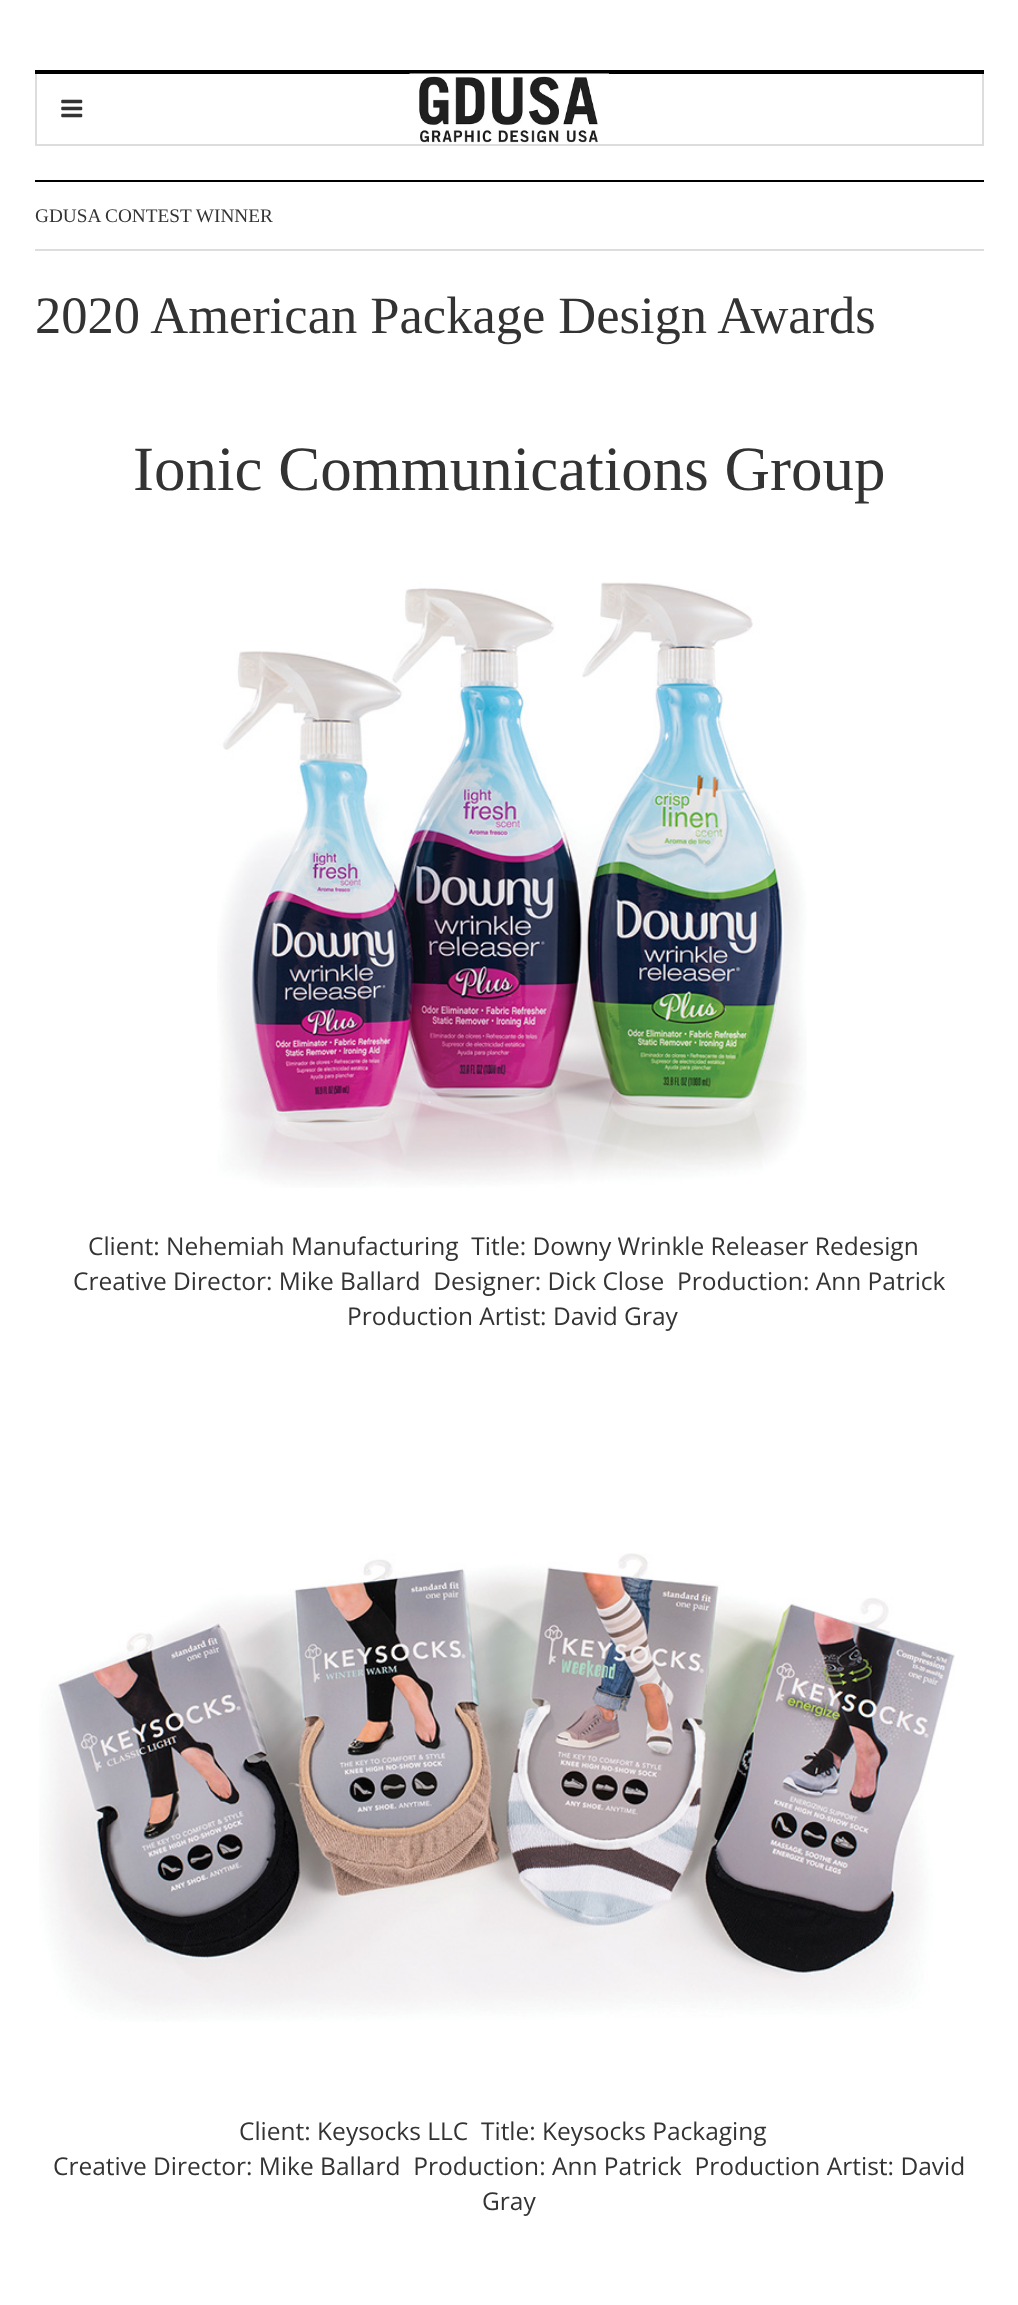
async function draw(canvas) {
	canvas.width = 1018;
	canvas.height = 2305;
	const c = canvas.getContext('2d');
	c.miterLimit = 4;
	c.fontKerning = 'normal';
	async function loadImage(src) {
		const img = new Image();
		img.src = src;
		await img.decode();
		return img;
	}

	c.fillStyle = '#fff';
	c.fillRect(0, 0, 1018, 2305);
	for (const [x, y, w, h, color] of [
		[35, 70, 949, 4, '#000'],
		[982, 74, 2, 71, '#ddd'],
		[35, 144, 949, 2, '#ddd'],
		[35, 74, 2, 71, '#ddd'],
	]) {
		c.fillStyle = color;
		c.fillRect(x, y, w, h);
	}
	c.drawImage(await loadImage('img1.png'), 61, 99, 22, 19);
	c.drawImage(await loadImage('img2.png'), 409, 73, 200, 70);
	c.fillStyle = '#000';
	c.fillRect(35, 180, 949, 2);
	c.fillStyle = '#ddd';
	c.fillRect(35, 249, 949, 2);
	c.font = '19.25px Liberation Serif';
	c.fillStyle = '#333';
	c.fillText('GDUSA CONTEST WINNER', 35, 222);
	c.font = '52.5px Liberation Serif';
	c.fillText('2020 American Package Design Awards', 35, 333);
	c.font = '63px Liberation Serif';
	c.fillText('Ionic Communications Group', 133, 490);
	c.drawImage(await loadImage('img3.png'), 217, 582, 590, 606);
	c.font = '24.5px Open Sans';
	for (const [text, x, y] of [
		['Client: Nehemiah Manufacturing  Title: Downy Wrinkle Releaser Redesign', 88, 1255],
		['Creative Director: Mike Ballard  Designer: Dick Close  Production: Ann Patrick', 73, 1290],
		['Production Artist: David Gray', 347, 1325],
	]) {
		c.fillText(text, x, y);
	}
	c.drawImage(await loadImage('img4.png'), 39, 1553, 916, 469);
	for (const [text, x, y] of [
		['Client: Keysocks LLC  Title: Keysocks Packaging', 239, 2140],
		['Creative Director: Mike Ballard  Production: Ann Patrick  Production Artist: David', 53, 2175],
		['Gray', 482, 2210],
	]) {
		c.fillText(text, x, y);
	}
}

draw(document.querySelector('canvas'));
